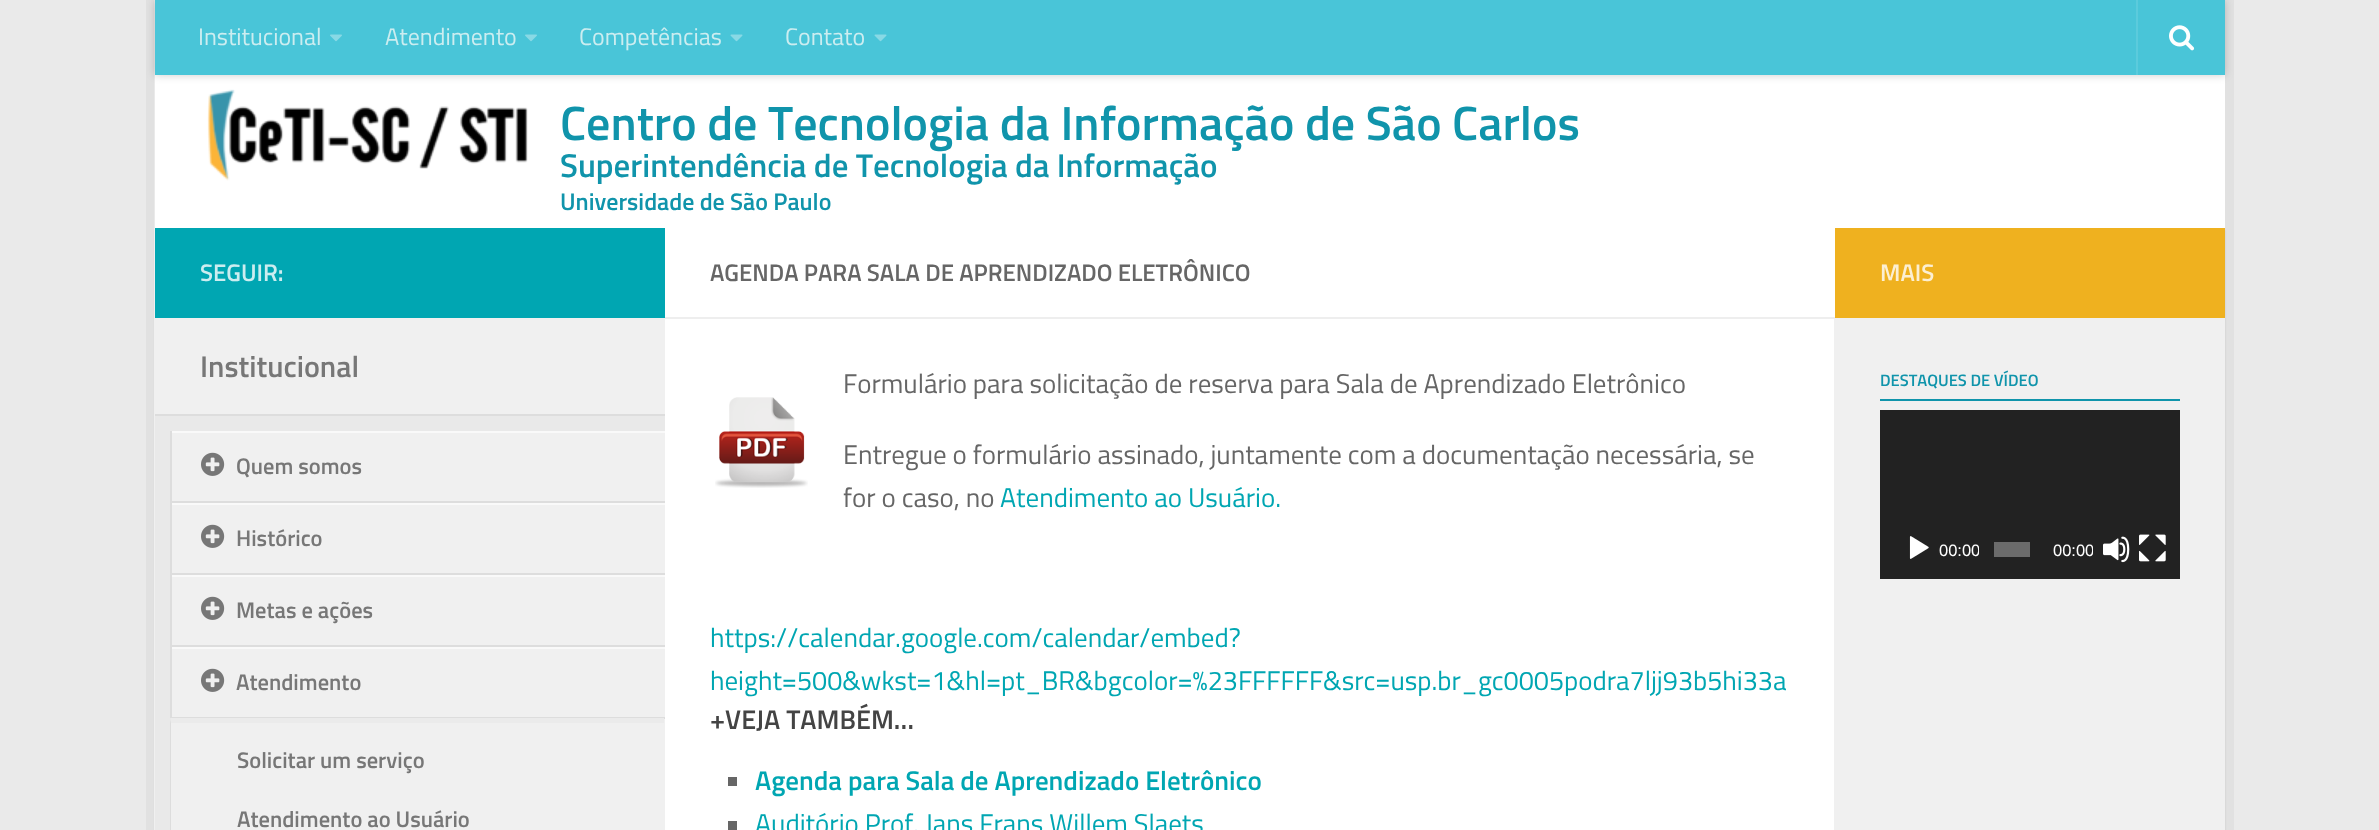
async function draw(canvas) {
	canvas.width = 2379;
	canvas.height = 830;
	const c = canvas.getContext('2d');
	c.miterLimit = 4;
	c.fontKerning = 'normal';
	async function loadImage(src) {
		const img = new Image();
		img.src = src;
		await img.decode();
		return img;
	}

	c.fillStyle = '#eaeaea';
	c.fillRect(0, 0, 2379, 830);
	c.fillStyle = '#e1e1e1';
	c.fillRect(146, 0, 8, 830);
	c.fillRect(2225, 0, 9, 830);
	c.fillStyle = '#0000001a';
	c.filter = 'blur(1px)';
	c.beginPath();
	c.rect(155, 230, 2070, 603);
	c.fill();
	c.filter = 'none';
	c.fillStyle = '#fff';
	c.fillRect(155, 75, 2070, 153);
	c.fillStyle = '#00000033';
	c.filter = 'blur(4px)';
	c.beginPath();
	c.rect(155, 0, 2070, 75);
	c.fill();
	c.filter = 'none';
	c.fillStyle = '#49c5d8';
	c.fillRect(155, 0, 2070, 75);
	c.font = '24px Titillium';
	c.fillStyle = '#ccedf0';
	c.fillText('Institucional', 198, 45);
	c.drawImage(await loadImage('img1.png'), 330, 34, 12, 8);
	c.fillText('Atendimento', 385, 45);
	c.drawImage(await loadImage('img1.png'), 525, 34, 12, 8);
	c.fillText('Competências', 579, 45);
	c.drawImage(await loadImage('img2.png'), 730, 34, 13, 8);
	c.fillText('Contato', 785, 45);
	c.drawImage(await loadImage('img2.png'), 874, 34, 13, 8);
	c.fillStyle = '#5bcbdc';
	c.fillRect(2136, 0, 2, 75);
	c.drawImage(await loadImage('img3.png'), 2169, 25, 26, 26);
	c.drawImage(await loadImage('img4.png'), 207, 89, 321, 92);
	c.font = '600 48px Titillium';
	c.fillStyle = '#1094ab';
	c.fillText('Centro de Tecnologia da Informação de São Carlos', 560, 140);
	c.font = '600 33px Titillium';
	c.fillText('Superintendência de Tecnologia da Informação', 560, 177);
	c.font = '600 24px Titillium';
	c.fillText('Universidade de São Paulo', 560, 210);
	for (const [x, y, w, h, color] of [
		[665, 319, 1169, 511, '#fff'],
		[1834, 318, 391, 512, '#f0f0f0'],
		[154, 228, 511, 602, '#f0f0f0'],
		[155, 228, 510, 90, '#00a6b2'],
	]) {
		c.fillStyle = color;
		c.fillRect(x, y, w, h);
	}
	c.fillStyle = '#ccedf0';
	c.fillText('SEGUIR:', 200, 281);
	c.font = '600 30px Titillium';
	c.fillStyle = '#777';
	c.fillText('Institucional', 200, 377);
	for (const [x, y, w, h, color] of [
		[155, 416, 510, 414, '#e9e9e9'],
		[155, 414, 510, 2, '#ddd'],
		[172, 433, 493, 68, '#f0f0f0'],
		[171, 431, 494, 2, '#f9f9f9'],
		[170, 501, 495, 2, '#ddd'],
		[170, 431, 2, 72, '#ddd'],
	]) {
		c.fillStyle = color;
		c.fillRect(x, y, w, h);
	}
	c.drawImage(await loadImage('img5.png'), 201, 452, 24, 24);
	c.font = '600 22.5px Titillium';
	c.fillStyle = '#777';
	c.fillText('Quem somos', 236, 474);
	for (const [x, y, w, h, color] of [
		[172, 505, 493, 68, '#f0f0f0'],
		[171, 503, 494, 2, '#f9f9f9'],
		[170, 573, 495, 2, '#ddd'],
		[170, 503, 2, 72, '#ddd'],
	]) {
		c.fillStyle = color;
		c.fillRect(x, y, w, h);
	}
	c.drawImage(await loadImage('img5.png'), 201, 524, 24, 24);
	c.fillStyle = '#777';
	c.fillText('Histórico', 236, 546);
	for (const [x, y, w, h, color] of [
		[172, 577, 493, 68, '#f0f0f0'],
		[171, 575, 494, 2, '#f9f9f9'],
		[170, 645, 495, 2, '#ddd'],
		[170, 575, 2, 72, '#ddd'],
	]) {
		c.fillStyle = color;
		c.fillRect(x, y, w, h);
	}
	c.drawImage(await loadImage('img5.png'), 201, 596, 24, 24);
	c.fillStyle = '#777';
	c.fillText('Metas e ações', 236, 618);
	for (const [x, y, w, h, color] of [
		[172, 649, 493, 68, '#f0f0f0'],
		[171, 647, 494, 2, '#f9f9f9'],
		[170, 717, 495, 2, '#ddd'],
		[170, 647, 2, 72, '#ddd'],
	]) {
		c.fillStyle = color;
		c.fillRect(x, y, w, h);
	}
	c.drawImage(await loadImage('img5.png'), 201, 668, 24, 24);
	c.fillStyle = '#777';
	c.fillText('Atendimento', 236, 690);
	c.fillStyle = '#f0f0f0';
	c.fillRect(170, 719, 495, 111);
	c.fillStyle = '#ebebeb';
	c.beginPath();
	c.moveTo(170, 718);
	c.lineTo(664, 718);
	c.lineTo(664, 723);
	c.lineTo(171, 723);
	c.closePath();
	c.fill();
	c.fillStyle = '#ddd';
	c.beginPath();
	c.moveTo(170, 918);
	c.lineTo(170, 718);
	c.lineTo(171, 723);
	c.lineTo(171, 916);
	c.closePath();
	c.fill();
	c.fillStyle = '#777';
	c.fillText('Solicitar um serviço', 237, 768);
	c.fillText('Atendimento ao Usuário', 237, 827);
	c.fillStyle = '#fff';
	c.fillRect(665, 228, 1170, 89);
	c.fillStyle = '#eee';
	c.fillRect(665, 317, 1170, 2);
	c.font = '600 24px Titillium';
	c.fillStyle = '#666';
	c.fillText('AGENDA PARA SALA DE APRENDIZADO ELETRÔNICO', 710, 281);
	c.font = '27px Titillium';
	c.fillText('Formulário para solicitação de reserva para Sala de Aprendizado Eletrônico', 843, 393);
	c.drawImage(await loadImage('img6.png'), 715, 397, 93, 91);
	c.fillText('Entregue o formulário assinado, juntamente com a documentação necessária, se', 843, 464);
	c.fillText('for o caso, no', 843, 507);
	c.fillStyle = '#00a6b2';
	for (const [text, x, y] of [
		['Atendimento ao Usuário.', 1000, 507],
		['https://calendar.google.com/calendar/embed?', 710, 647],
		['height=500&wkst=1&hl=pt_BR&bgcolor=%23FFFFFF&src=usp.br_gc0005podra7ljj93b5hi33a', 710, 690],
	]) {
		c.fillText(text, x, y);
	}
	c.font = '600 27px Titillium';
	c.fillStyle = '#444';
	c.fillText('+VEJA TAMBÉM…', 710, 729);
	c.fillStyle = '#666';
	c.fillRect(728, 777, 9, 9);
	c.fillStyle = '#00a6b2';
	c.fillText('Agenda para Sala de Aprendizado Eletrônico', 755, 790);
	c.fillStyle = '#666';
	c.fillRect(728, 821, 9, 9);
	c.font = '27px Titillium';
	c.fillStyle = '#00a6b2';
	c.fillText('Auditório Prof. Jans Frans Willem Slaets', 755, 833);
	c.fillStyle = '#efb11f';
	c.fillRect(1835, 228, 390, 90);
	c.font = '600 24px Titillium';
	c.fillStyle = '#fcefd2';
	c.fillText('MAIS', 1880, 281);
	c.fillStyle = '#1094ab';
	c.fillRect(1880, 399, 300, 2);
	c.font = '600 16.5px Titillium';
	c.fillText('DESTAQUES DE VÍDEO', 1880, 386);
	c.fillStyle = '#222';
	c.fillRect(1880, 410, 300, 169);
	c.drawImage(await loadImage('img7.png'), 1909, 536, 20, 23);
	c.save();
	c.beginPath();
	c.rect(1931, 519, 48, 60);
	c.clip();
	c.font = '16.5px Liberation Sans';
	c.fillStyle = '#fff';
	c.fillText('00:00', 1939, 556);
	c.restore();
	c.fillStyle = '#6b6b6b';
	c.fillRect(1994, 542, 36, 15);
	c.save();
	c.beginPath();
	c.rect(2045, 519, 48, 60);
	c.clip();
	c.font = '16.5px Liberation Sans';
	c.fillStyle = '#fff';
	c.fillText('00:00', 2053, 556);
	c.restore();
	c.drawImage(await loadImage('img8.png'), 2103, 536, 27, 27);
	c.drawImage(await loadImage('img9.png'), 2139, 534, 27, 28);
}

draw(document.querySelector('canvas'));
